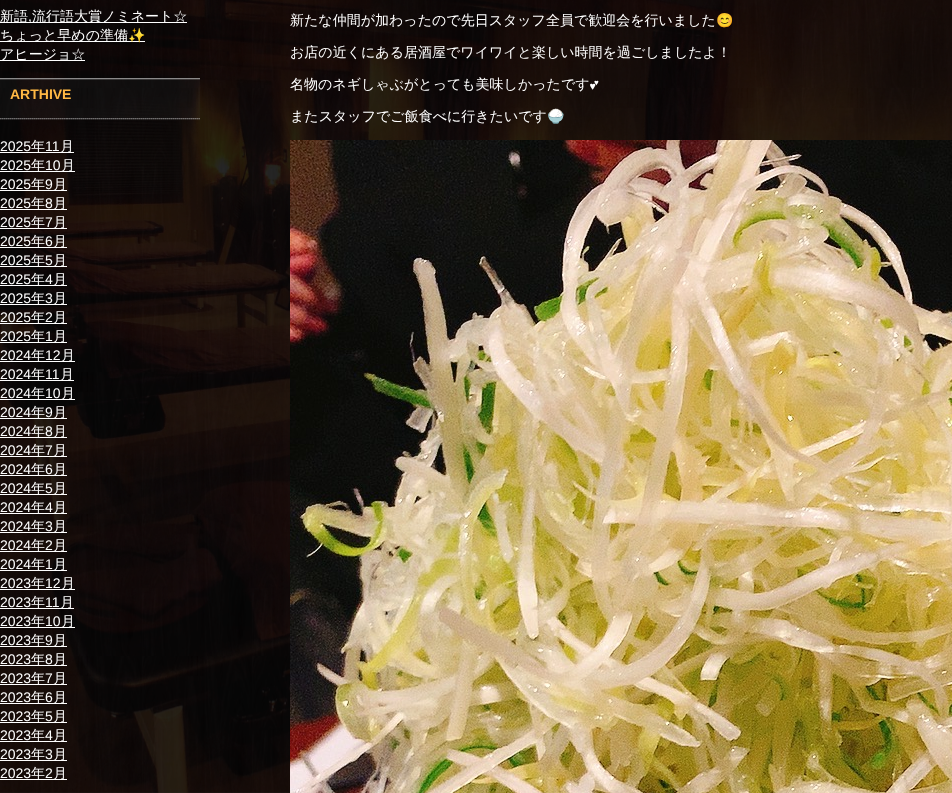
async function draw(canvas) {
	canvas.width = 952;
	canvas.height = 793;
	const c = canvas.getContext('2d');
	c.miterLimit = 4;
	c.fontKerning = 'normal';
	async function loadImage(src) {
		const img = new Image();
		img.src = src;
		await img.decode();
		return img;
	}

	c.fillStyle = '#fff';
	c.fillRect(0, 0, 952, 793);
	c.drawImage(await loadImage('img1.png'), 0, 0, 952, 793);
	c.drawImage(await loadImage('img2.png'), 0, 0, 952, 793);
	c.fillRect(0, 22, 187, 1);
	c.font = '500 14px WenQuanYi Zen Hei';
	c.fillText('新語', 0, 21);
	c.font = '14px Liberation Sans';
	c.fillText(',', 28, 21);
	c.font = '500 14px WenQuanYi Zen Hei';
	c.fillText('流行語大賞ノミネート☆', 32, 21);
	c.fillRect(0, 41, 145, 1);
	c.fillText('ちょっと早めの準備', 0, 40);
	c.font = '14px Noto Color Emoji';
	c.fillText('✨️', 128, 40);
	c.fillRect(0, 60, 85, 1);
	c.font = '500 14px WenQuanYi Zen Hei';
	c.fillText('アヒージョ☆', 0, 59);
	c.drawImage(await loadImage('img3.png'), 0, 78, 200, 42);
	c.font = 'bold 14px Liberation Sans';
	c.fillStyle = '#ffb844';
	c.fillText('ARTHIVE', 10, 99);
	c.font = '14px Liberation Sans';
	c.fillStyle = '#fff';
	c.fillText('2025', 0, 151);
	c.fillRect(0, 152, 74, 1);
	c.font = '500 14px WenQuanYi Zen Hei';
	c.fillText('年', 31, 151);
	c.font = '14px Liberation Sans';
	c.fillText('11', 45, 151);
	c.font = '500 14px WenQuanYi Zen Hei';
	c.fillText('月', 60, 151);
	c.font = '14px Liberation Sans';
	c.fillText('2025', 0, 170);
	c.fillRect(0, 171, 75, 1);
	c.font = '500 14px WenQuanYi Zen Hei';
	c.fillText('年', 31, 170);
	c.font = '14px Liberation Sans';
	c.fillText('10', 45, 170);
	c.font = '500 14px WenQuanYi Zen Hei';
	c.fillText('月', 61, 170);
	c.font = '14px Liberation Sans';
	c.fillText('2025', 0, 189);
	c.fillRect(0, 190, 67, 1);
	c.font = '500 14px WenQuanYi Zen Hei';
	c.fillText('年', 31, 189);
	c.font = '14px Liberation Sans';
	c.fillText('9', 45, 189);
	c.font = '500 14px WenQuanYi Zen Hei';
	c.fillText('月', 53, 189);
	c.font = '14px Liberation Sans';
	c.fillText('2025', 0, 208);
	c.fillRect(0, 209, 67, 1);
	c.font = '500 14px WenQuanYi Zen Hei';
	c.fillText('年', 31, 208);
	c.font = '14px Liberation Sans';
	c.fillText('8', 45, 208);
	c.font = '500 14px WenQuanYi Zen Hei';
	c.fillText('月', 53, 208);
	c.font = '14px Liberation Sans';
	c.fillText('2025', 0, 227);
	c.fillRect(0, 228, 67, 1);
	c.font = '500 14px WenQuanYi Zen Hei';
	c.fillText('年', 31, 227);
	c.font = '14px Liberation Sans';
	c.fillText('7', 45, 227);
	c.font = '500 14px WenQuanYi Zen Hei';
	c.fillText('月', 53, 227);
	c.font = '14px Liberation Sans';
	c.fillText('2025', 0, 246);
	c.fillRect(0, 247, 67, 1);
	c.font = '500 14px WenQuanYi Zen Hei';
	c.fillText('年', 31, 246);
	c.font = '14px Liberation Sans';
	c.fillText('6', 45, 246);
	c.font = '500 14px WenQuanYi Zen Hei';
	c.fillText('月', 53, 246);
	c.font = '14px Liberation Sans';
	c.fillText('2025', 0, 265);
	c.fillRect(0, 266, 67, 1);
	c.font = '500 14px WenQuanYi Zen Hei';
	c.fillText('年', 31, 265);
	c.font = '14px Liberation Sans';
	c.fillText('5', 45, 265);
	c.font = '500 14px WenQuanYi Zen Hei';
	c.fillText('月', 53, 265);
	c.font = '14px Liberation Sans';
	c.fillText('2025', 0, 284);
	c.fillRect(0, 285, 67, 1);
	c.font = '500 14px WenQuanYi Zen Hei';
	c.fillText('年', 31, 284);
	c.font = '14px Liberation Sans';
	c.fillText('4', 45, 284);
	c.font = '500 14px WenQuanYi Zen Hei';
	c.fillText('月', 53, 284);
	c.font = '14px Liberation Sans';
	c.fillText('2025', 0, 303);
	c.fillRect(0, 304, 67, 1);
	c.font = '500 14px WenQuanYi Zen Hei';
	c.fillText('年', 31, 303);
	c.font = '14px Liberation Sans';
	c.fillText('3', 45, 303);
	c.font = '500 14px WenQuanYi Zen Hei';
	c.fillText('月', 53, 303);
	c.font = '14px Liberation Sans';
	c.fillText('2025', 0, 322);
	c.fillRect(0, 323, 67, 1);
	c.font = '500 14px WenQuanYi Zen Hei';
	c.fillText('年', 31, 322);
	c.font = '14px Liberation Sans';
	c.fillText('2', 45, 322);
	c.font = '500 14px WenQuanYi Zen Hei';
	c.fillText('月', 53, 322);
	c.font = '14px Liberation Sans';
	c.fillText('2025', 0, 341);
	c.fillRect(0, 342, 67, 1);
	c.font = '500 14px WenQuanYi Zen Hei';
	c.fillText('年', 31, 341);
	c.font = '14px Liberation Sans';
	c.fillText('1', 45, 341);
	c.font = '500 14px WenQuanYi Zen Hei';
	c.fillText('月', 53, 341);
	c.font = '14px Liberation Sans';
	c.fillText('2024', 0, 360);
	c.fillRect(0, 361, 75, 1);
	c.font = '500 14px WenQuanYi Zen Hei';
	c.fillText('年', 31, 360);
	c.font = '14px Liberation Sans';
	c.fillText('12', 45, 360);
	c.font = '500 14px WenQuanYi Zen Hei';
	c.fillText('月', 61, 360);
	c.font = '14px Liberation Sans';
	c.fillText('2024', 0, 379);
	c.fillRect(0, 380, 74, 1);
	c.font = '500 14px WenQuanYi Zen Hei';
	c.fillText('年', 31, 379);
	c.font = '14px Liberation Sans';
	c.fillText('11', 45, 379);
	c.font = '500 14px WenQuanYi Zen Hei';
	c.fillText('月', 60, 379);
	c.font = '14px Liberation Sans';
	c.fillText('2024', 0, 398);
	c.fillRect(0, 399, 75, 1);
	c.font = '500 14px WenQuanYi Zen Hei';
	c.fillText('年', 31, 398);
	c.font = '14px Liberation Sans';
	c.fillText('10', 45, 398);
	c.font = '500 14px WenQuanYi Zen Hei';
	c.fillText('月', 61, 398);
	c.font = '14px Liberation Sans';
	c.fillText('2024', 0, 417);
	c.fillRect(0, 418, 67, 1);
	c.font = '500 14px WenQuanYi Zen Hei';
	c.fillText('年', 31, 417);
	c.font = '14px Liberation Sans';
	c.fillText('9', 45, 417);
	c.font = '500 14px WenQuanYi Zen Hei';
	c.fillText('月', 53, 417);
	c.font = '14px Liberation Sans';
	c.fillText('2024', 0, 436);
	c.fillRect(0, 437, 67, 1);
	c.font = '500 14px WenQuanYi Zen Hei';
	c.fillText('年', 31, 436);
	c.font = '14px Liberation Sans';
	c.fillText('8', 45, 436);
	c.font = '500 14px WenQuanYi Zen Hei';
	c.fillText('月', 53, 436);
	c.font = '14px Liberation Sans';
	c.fillText('2024', 0, 455);
	c.fillRect(0, 456, 67, 1);
	c.font = '500 14px WenQuanYi Zen Hei';
	c.fillText('年', 31, 455);
	c.font = '14px Liberation Sans';
	c.fillText('7', 45, 455);
	c.font = '500 14px WenQuanYi Zen Hei';
	c.fillText('月', 53, 455);
	c.font = '14px Liberation Sans';
	c.fillText('2024', 0, 474);
	c.fillRect(0, 475, 67, 1);
	c.font = '500 14px WenQuanYi Zen Hei';
	c.fillText('年', 31, 474);
	c.font = '14px Liberation Sans';
	c.fillText('6', 45, 474);
	c.font = '500 14px WenQuanYi Zen Hei';
	c.fillText('月', 53, 474);
	c.font = '14px Liberation Sans';
	c.fillText('2024', 0, 493);
	c.fillRect(0, 494, 67, 1);
	c.font = '500 14px WenQuanYi Zen Hei';
	c.fillText('年', 31, 493);
	c.font = '14px Liberation Sans';
	c.fillText('5', 45, 493);
	c.font = '500 14px WenQuanYi Zen Hei';
	c.fillText('月', 53, 493);
	c.font = '14px Liberation Sans';
	c.fillText('2024', 0, 512);
	c.fillRect(0, 513, 67, 1);
	c.font = '500 14px WenQuanYi Zen Hei';
	c.fillText('年', 31, 512);
	c.font = '14px Liberation Sans';
	c.fillText('4', 45, 512);
	c.font = '500 14px WenQuanYi Zen Hei';
	c.fillText('月', 53, 512);
	c.font = '14px Liberation Sans';
	c.fillText('2024', 0, 531);
	c.fillRect(0, 532, 67, 1);
	c.font = '500 14px WenQuanYi Zen Hei';
	c.fillText('年', 31, 531);
	c.font = '14px Liberation Sans';
	c.fillText('3', 45, 531);
	c.font = '500 14px WenQuanYi Zen Hei';
	c.fillText('月', 53, 531);
	c.font = '14px Liberation Sans';
	c.fillText('2024', 0, 550);
	c.fillRect(0, 551, 67, 1);
	c.font = '500 14px WenQuanYi Zen Hei';
	c.fillText('年', 31, 550);
	c.font = '14px Liberation Sans';
	c.fillText('2', 45, 550);
	c.font = '500 14px WenQuanYi Zen Hei';
	c.fillText('月', 53, 550);
	c.font = '14px Liberation Sans';
	c.fillText('2024', 0, 569);
	c.fillRect(0, 570, 67, 1);
	c.font = '500 14px WenQuanYi Zen Hei';
	c.fillText('年', 31, 569);
	c.font = '14px Liberation Sans';
	c.fillText('1', 45, 569);
	c.font = '500 14px WenQuanYi Zen Hei';
	c.fillText('月', 53, 569);
	c.font = '14px Liberation Sans';
	c.fillText('2023', 0, 588);
	c.fillRect(0, 589, 75, 1);
	c.font = '500 14px WenQuanYi Zen Hei';
	c.fillText('年', 31, 588);
	c.font = '14px Liberation Sans';
	c.fillText('12', 45, 588);
	c.font = '500 14px WenQuanYi Zen Hei';
	c.fillText('月', 61, 588);
	c.font = '14px Liberation Sans';
	c.fillText('2023', 0, 607);
	c.fillRect(0, 608, 74, 1);
	c.font = '500 14px WenQuanYi Zen Hei';
	c.fillText('年', 31, 607);
	c.font = '14px Liberation Sans';
	c.fillText('11', 45, 607);
	c.font = '500 14px WenQuanYi Zen Hei';
	c.fillText('月', 60, 607);
	c.font = '14px Liberation Sans';
	c.fillText('2023', 0, 626);
	c.fillRect(0, 627, 75, 1);
	c.font = '500 14px WenQuanYi Zen Hei';
	c.fillText('年', 31, 626);
	c.font = '14px Liberation Sans';
	c.fillText('10', 45, 626);
	c.font = '500 14px WenQuanYi Zen Hei';
	c.fillText('月', 61, 626);
	c.font = '14px Liberation Sans';
	c.fillText('2023', 0, 645);
	c.fillRect(0, 646, 67, 1);
	c.font = '500 14px WenQuanYi Zen Hei';
	c.fillText('年', 31, 645);
	c.font = '14px Liberation Sans';
	c.fillText('9', 45, 645);
	c.font = '500 14px WenQuanYi Zen Hei';
	c.fillText('月', 53, 645);
	c.font = '14px Liberation Sans';
	c.fillText('2023', 0, 664);
	c.fillRect(0, 665, 67, 1);
	c.font = '500 14px WenQuanYi Zen Hei';
	c.fillText('年', 31, 664);
	c.font = '14px Liberation Sans';
	c.fillText('8', 45, 664);
	c.font = '500 14px WenQuanYi Zen Hei';
	c.fillText('月', 53, 664);
	c.font = '14px Liberation Sans';
	c.fillText('2023', 0, 683);
	c.fillRect(0, 684, 67, 1);
	c.font = '500 14px WenQuanYi Zen Hei';
	c.fillText('年', 31, 683);
	c.font = '14px Liberation Sans';
	c.fillText('7', 45, 683);
	c.font = '500 14px WenQuanYi Zen Hei';
	c.fillText('月', 53, 683);
	c.font = '14px Liberation Sans';
	c.fillText('2023', 0, 702);
	c.fillRect(0, 703, 67, 1);
	c.font = '500 14px WenQuanYi Zen Hei';
	c.fillText('年', 31, 702);
	c.font = '14px Liberation Sans';
	c.fillText('6', 45, 702);
	c.font = '500 14px WenQuanYi Zen Hei';
	c.fillText('月', 53, 702);
	c.font = '14px Liberation Sans';
	c.fillText('2023', 0, 721);
	c.fillRect(0, 722, 67, 1);
	c.font = '500 14px WenQuanYi Zen Hei';
	c.fillText('年', 31, 721);
	c.font = '14px Liberation Sans';
	c.fillText('5', 45, 721);
	c.font = '500 14px WenQuanYi Zen Hei';
	c.fillText('月', 53, 721);
	c.font = '14px Liberation Sans';
	c.fillText('2023', 0, 740);
	c.fillRect(0, 741, 67, 1);
	c.font = '500 14px WenQuanYi Zen Hei';
	c.fillText('年', 31, 740);
	c.font = '14px Liberation Sans';
	c.fillText('4', 45, 740);
	c.font = '500 14px WenQuanYi Zen Hei';
	c.fillText('月', 53, 740);
	c.font = '14px Liberation Sans';
	c.fillText('2023', 0, 759);
	c.fillRect(0, 760, 67, 1);
	c.font = '500 14px WenQuanYi Zen Hei';
	c.fillText('年', 31, 759);
	c.font = '14px Liberation Sans';
	c.fillText('3', 45, 759);
	c.font = '500 14px WenQuanYi Zen Hei';
	c.fillText('月', 53, 759);
	c.font = '14px Liberation Sans';
	c.fillText('2023', 0, 778);
	c.fillRect(0, 779, 67, 1);
	c.font = '500 14px WenQuanYi Zen Hei';
	c.fillText('年', 31, 778);
	c.font = '14px Liberation Sans';
	c.fillText('2', 45, 778);
	c.font = '500 14px WenQuanYi Zen Hei';
	c.fillText('月', 53, 778);
	c.fillText('新たな仲間が加わったので先日スタッフ全員で歓迎会を行いました', 290, 25);
	c.font = '14px Noto Color Emoji';
	c.fillText('😊', 716, 25);
	c.font = '500 14px WenQuanYi Zen Hei';
	c.fillText('お店の近くにある居酒屋でワイワイと楽しい時間を過ごしましたよ！', 290, 57);
	c.fillText('名物のネギしゃぶがとっても美味しかったです', 290, 89);
	c.font = '14px FreeSans';
	c.fillText('💕︎', 590, 89);
	c.font = '500 14px WenQuanYi Zen Hei';
	c.fillText('またスタッフでご飯食べに行きたいです', 290, 121);
	c.font = '14px Noto Color Emoji';
	c.fillText('🍚', 547, 121);
	c.drawImage(await loadImage('img4.png'), 290, 140, 662, 653);
}

draw(document.querySelector('canvas'));
